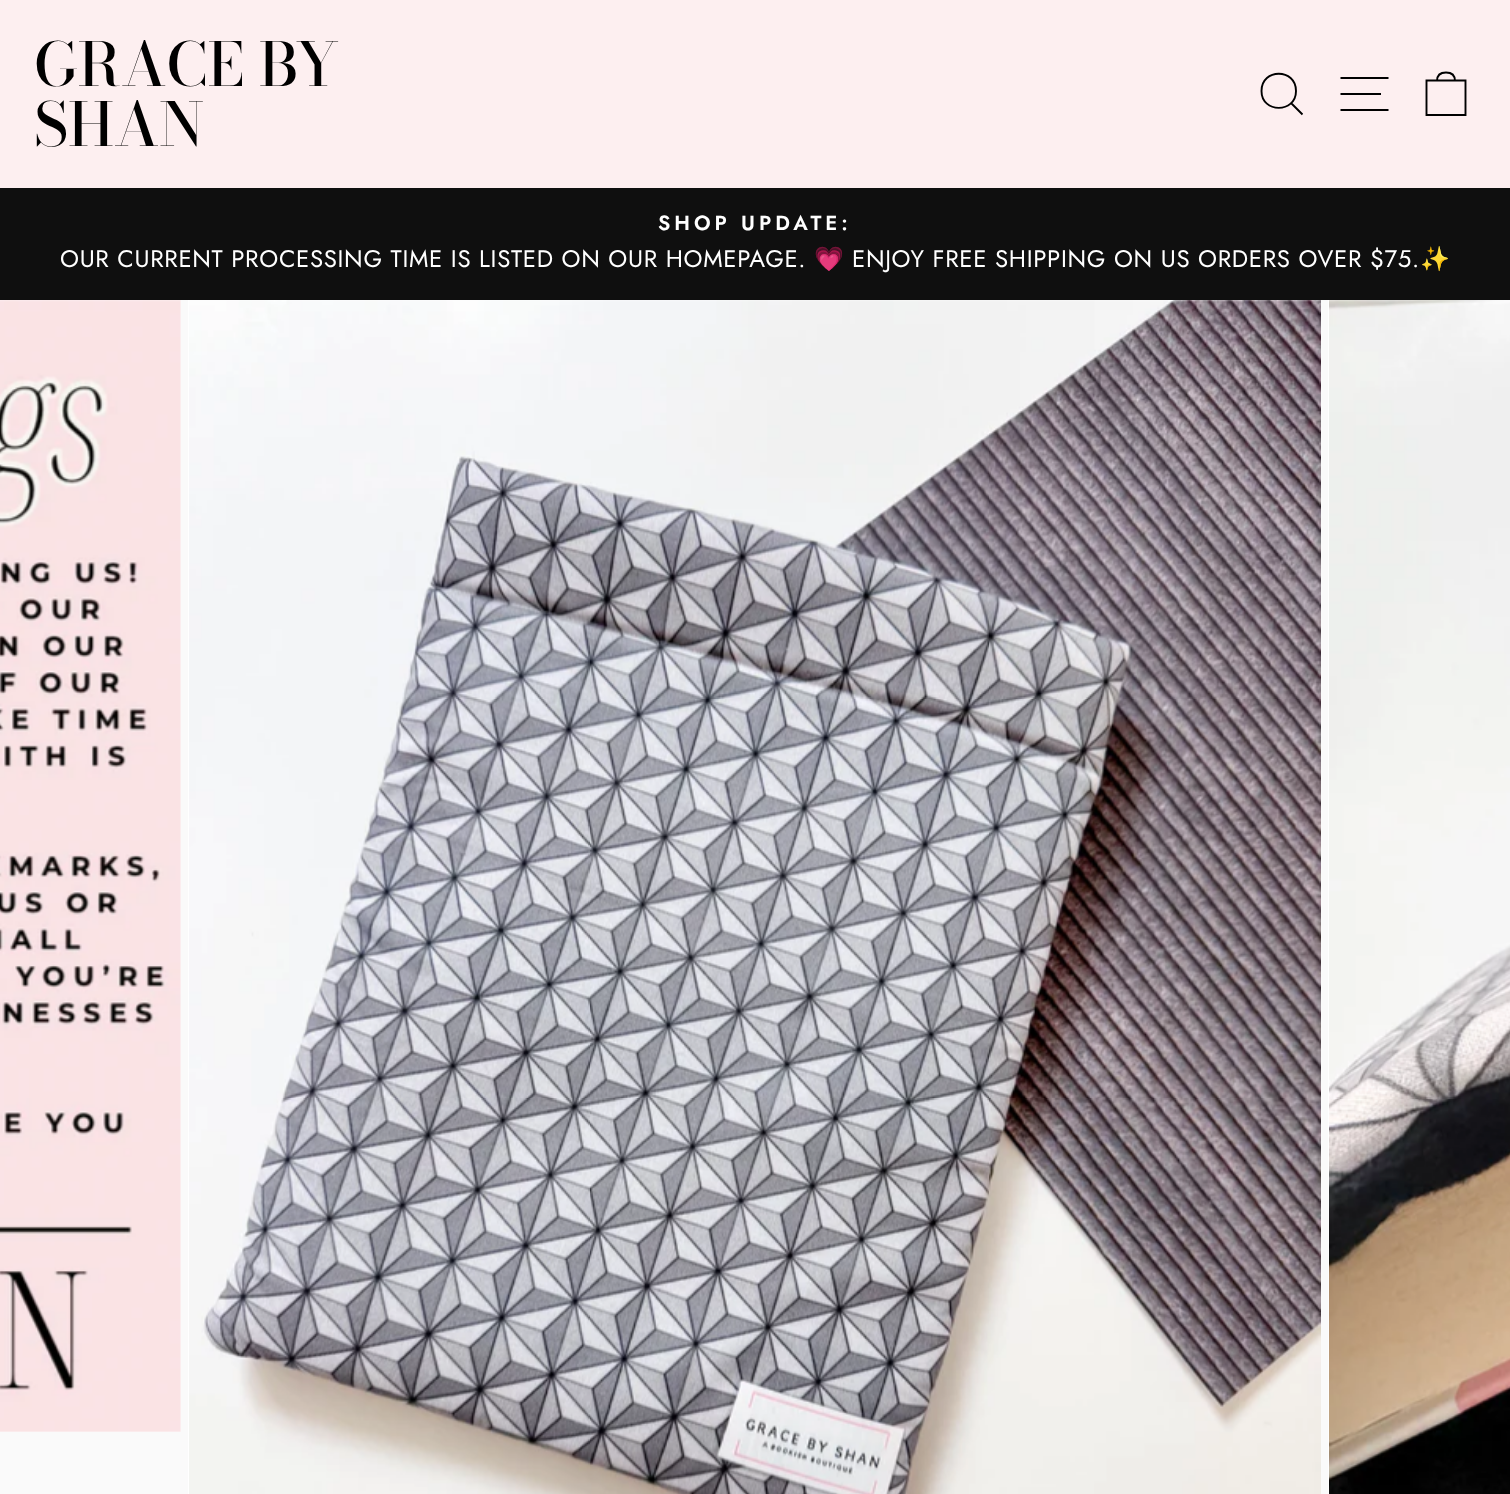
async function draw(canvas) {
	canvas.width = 1510;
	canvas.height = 1494;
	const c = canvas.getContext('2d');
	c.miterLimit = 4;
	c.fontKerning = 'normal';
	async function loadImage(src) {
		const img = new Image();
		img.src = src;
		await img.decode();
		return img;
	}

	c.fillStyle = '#fafafa';
	c.fillRect(0, 0, 1510, 1494);
	c.fillStyle = '#fdeff0';
	c.fillRect(0, 0, 1510, 188);
	c.font = '500 60px Bodoni Moda';
	c.fillStyle = '#000';
	c.fillText('GRACE BY', 34, 86);
	c.fillText('SHAN', 34, 146);
	c.beginPath();
	c.moveTo(1296, 91);
	c.bezierCurveTo(1296, 113.5, 1261.5, 113.5, 1261.5, 91);
	c.bezierCurveTo(1261.5, 68, 1296, 68, 1296, 91);
	c.closePath();
	c.moveTo(1302.5, 114.5);
	c.lineTo(1291.5, 103.5);
	c.strokeStyle = '#000';
	c.lineWidth = 1.9;
	c.stroke();
	c.beginPath();
	c.moveTo(1340.5, 78);
	c.lineTo(1388.5, 78);
	c.moveTo(1340.5, 94);
	c.lineTo(1381, 94);
	c.moveTo(1340.5, 110);
	c.lineTo(1388.5, 110);
	c.stroke();
	c.beginPath();
	c.moveTo(1426.5, 80.5);
	c.lineTo(1465.5, 80.5);
	c.lineTo(1465.5, 115);
	c.lineTo(1426.5, 115);
	c.closePath();
	c.moveTo(1437, 81);
	c.bezierCurveTo(1437, 74, 1441, 72.5, 1446, 72.5);
	c.bezierCurveTo(1451, 72.5, 1455, 74, 1455, 81);
	c.stroke();
	c.fillStyle = '#0f0f0f';
	c.fillRect(0, 188, 1510, 112);
	c.letterSpacing = '4px';
	c.font = '600 20.5px Jost';
	c.fillStyle = '#fff';
	c.fillText('SHOP UPDATE:', 658, 230);
	c.letterSpacing = '0.68px';
	c.font = '24px Jost';
	c.fillText('OUR CURRENT PROCESSING TIME IS LISTED ON OUR HOMEPAGE.', 60, 267);
	c.font = '24px Noto Color Emoji';
	c.fillText('💗', 814, 267);
	c.font = '24px Jost';
	c.fillText('ENJOY FREE SHIPPING ON US ORDERS OVER $75.', 852, 267);
	c.font = '24px Noto Color Emoji';
	c.fillText('✨', 1420, 267);
	c.fillRect(0, 300, 180, 1132);
	c.drawImage(await loadImage('img1.png'), 0, 300, 181, 1132);
	c.fillRect(188, 300, 1132, 1194);
	c.drawImage(await loadImage('img2.png'), 189, 300, 1132, 1194);
	c.fillRect(1328, 300, 182, 1194);
	c.drawImage(await loadImage('img3.png'), 1329, 300, 181, 1194);
}

draw(document.querySelector('canvas'));
